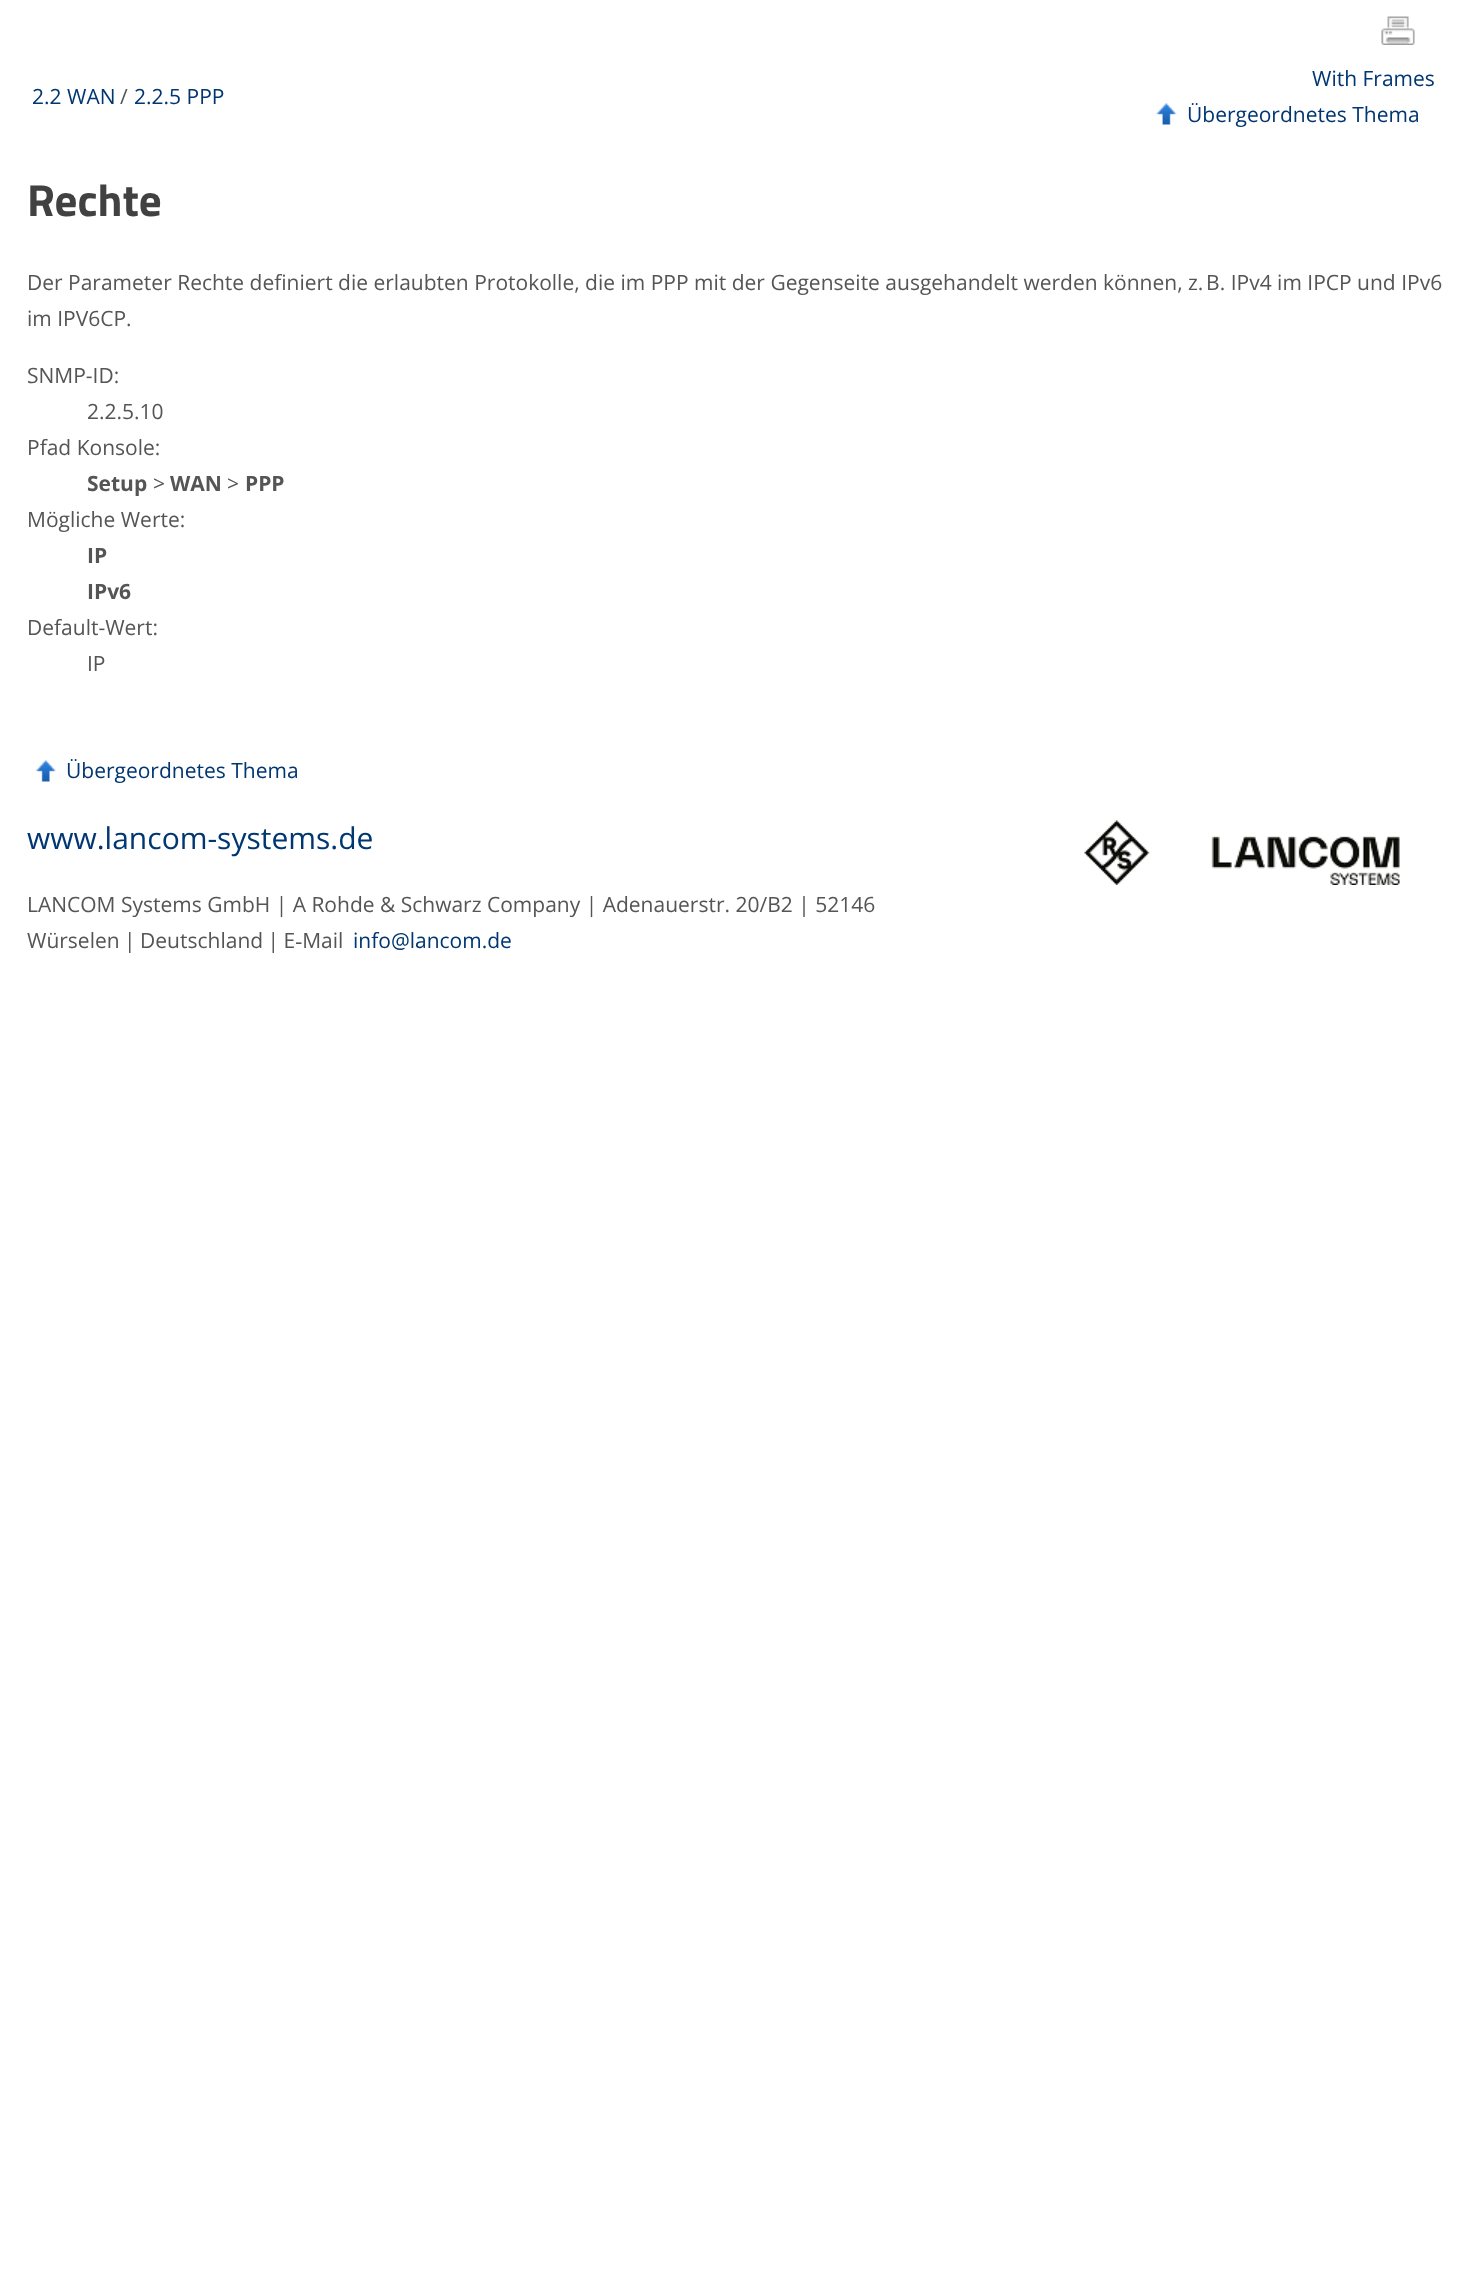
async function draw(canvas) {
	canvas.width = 1458;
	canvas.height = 2269;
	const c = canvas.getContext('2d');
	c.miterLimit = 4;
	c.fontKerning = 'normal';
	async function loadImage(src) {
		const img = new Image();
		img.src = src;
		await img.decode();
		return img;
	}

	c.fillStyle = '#fff';
	c.fillRect(0, 0, 1458, 2269);
	c.drawImage(await loadImage('img1.png'), 1381, 16, 34, 29);
	c.font = '21px Open Sans';
	c.fillStyle = '#003671';
	c.fillText('2.2 WAN', 32, 104);
	c.fillStyle = '#555';
	c.fillText('/', 120, 104);
	c.fillStyle = '#003671';
	c.fillText('2.2.5 PPP', 134, 104);
	c.fillText('With Frames', 1312, 86);
	c.drawImage(await loadImage('img2.png'), 1156, 103, 21, 22);
	c.fillText('Übergeordnetes Thema', 1187, 122);
	c.font = 'bold 45px Titillium Web';
	c.fillStyle = '#414141';
	c.fillText('Rechte', 27, 216);
	c.font = '21px Open Sans';
	c.fillStyle = '#555';
	for (const [text, x, y] of [
		['Der Parameter Rechte definiert die erlaubten Protokolle, die im PPP mit der Gegenseite ausgehandelt werden können, z. B. IPv4 im IPCP und IPv6', 27, 290],
		['im IPV6CP.', 27, 326],
		['SNMP-ID:', 27, 383],
		['2.2.5.10', 87, 419],
		['Pfad Konsole:', 27, 455],
	]) {
		c.fillText(text, x, y);
	}
	c.font = 'bold 21px Open Sans';
	c.fillText('Setup', 87, 491);
	c.font = '21px Open Sans';
	c.fillText('>', 153, 491);
	c.font = 'bold 21px Open Sans';
	c.fillText('WAN', 170, 491);
	c.font = '21px Open Sans';
	c.fillText('>', 227, 491);
	c.font = 'bold 21px Open Sans';
	c.fillText('PPP', 245, 491);
	c.font = '21px Open Sans';
	c.fillText('Mögliche Werte:', 27, 527);
	c.font = 'bold 21px Open Sans';
	c.fillText('IP', 87, 563);
	c.fillText('IPv6', 87, 599);
	c.font = '21px Open Sans';
	c.fillText('Default-Wert:', 27, 635);
	c.fillText('IP', 87, 671);
	c.drawImage(await loadImage('img3.png'), 35, 760, 21, 22);
	c.fillStyle = '#003671';
	c.fillText('Übergeordnetes Thema', 66, 778);
	c.font = '30px Open Sans';
	c.fillText('www.lancom-systems.de', 27, 849);
	c.font = '21px Open Sans';
	c.fillStyle = '#555';
	c.fillText('LANCOM Systems GmbH | A Rohde & Schwarz Company | Adenauerstr. 20/B2 | 52146', 27, 912);
	c.wordSpacing = '-1px';
	c.fillText('Würselen | Deutschland | E‑Mail', 27, 948);
	c.wordSpacing = '0px';
	c.fillStyle = '#003671';
	c.fillText('info@lancom.de', 353, 948);
	c.drawImage(await loadImage('img4.png'), 1084, 820, 316, 65);
}

draw(document.querySelector('canvas'));
